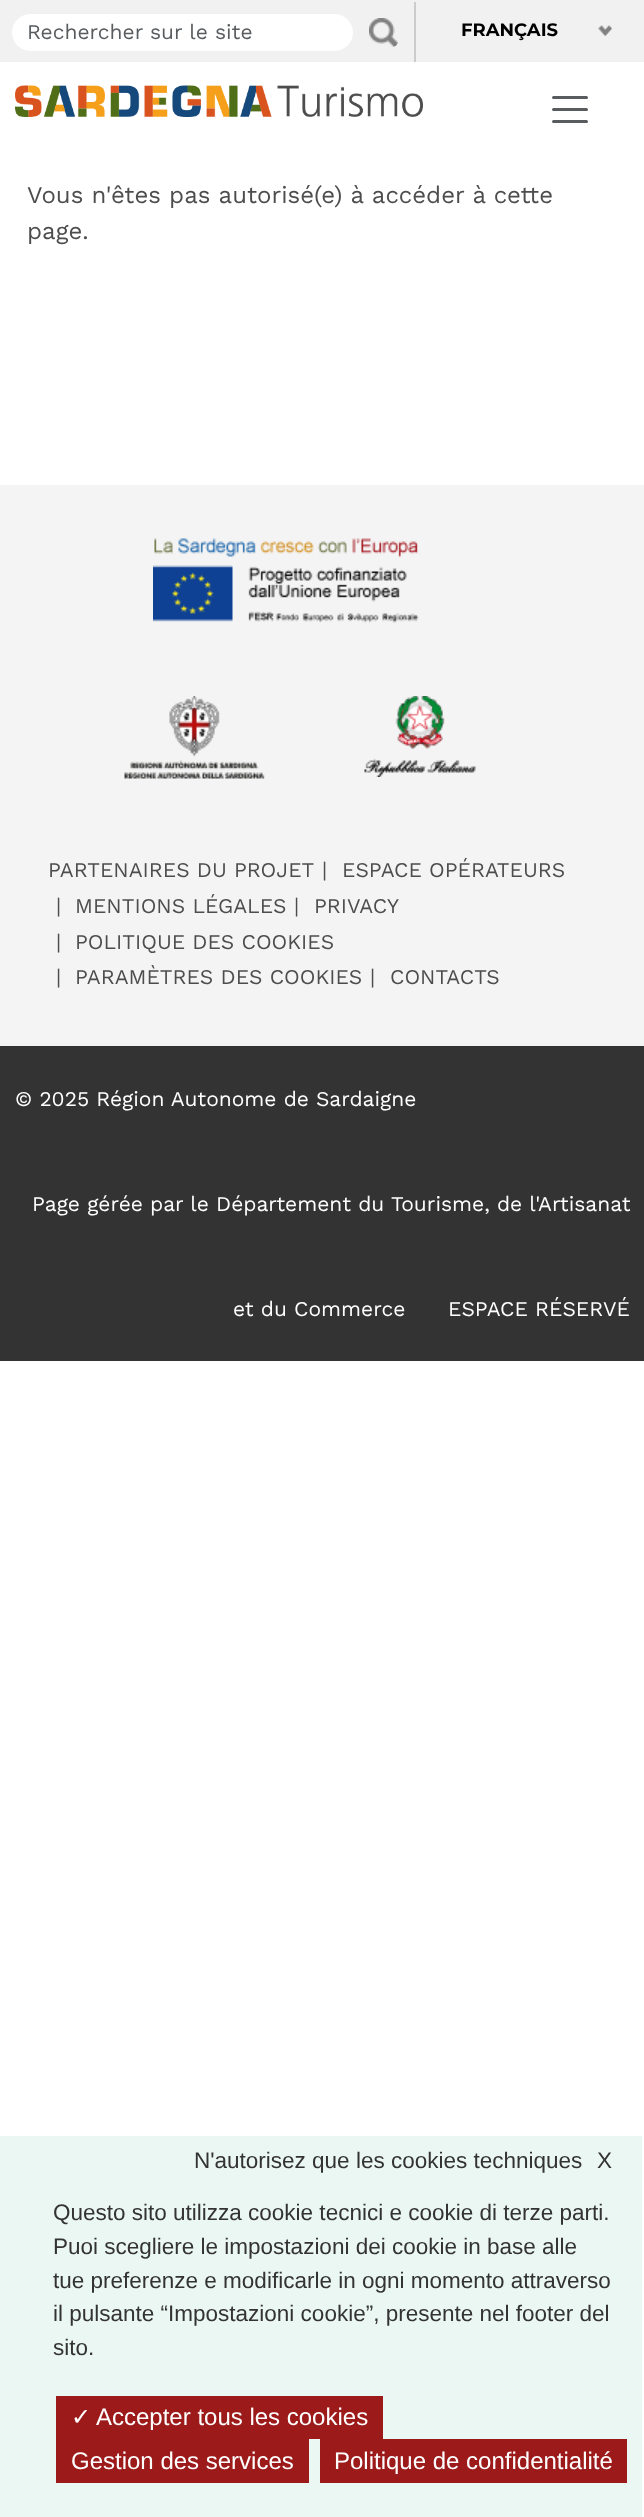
async function draw(canvas) {
	canvas.width = 644;
	canvas.height = 2517;
	const c = canvas.getContext('2d');
	c.miterLimit = 4;
	c.fontKerning = 'normal';
	async function loadImage(src) {
		const img = new Image();
		img.src = src;
		await img.decode();
		return img;
	}

	c.fillStyle = '#fff';
	c.fillRect(0, 0, 644, 2517);
	c.fillStyle = '#f1f1f1';
	c.fillRect(0, 0, 644, 62);
	c.fillStyle = '#ccc';
	c.fillRect(414, 2, 2, 60);
	c.fillStyle = '#fff';
	c.beginPath();
	c.roundRect(12, 14, 341, 37, 18.5);
	c.fill();
	c.font = '21px Work Sans';
	c.fillStyle = '#595c5f';
	c.fillText('Rechercher sur le site', 27, 39);
	c.drawImage(await loadImage('img1.png'), 369, 18, 29, 29);
	c.font = '100 18px Montserrat';
	c.fillStyle = '#000';
	c.fillText('FRANÇAIS', 461, 36);
	c.drawImage(await loadImage('img2.png'), 598, 25, 14, 11);
	c.drawImage(await loadImage('img3.png'), 15, 85, 408, 32);
	c.beginPath();
	c.moveTo(553.5, 97.5);
	c.lineTo(586.5, 97.5);
	c.moveTo(553.5, 109.5);
	c.lineTo(586.5, 109.5);
	c.moveTo(553.5, 121.5);
	c.lineTo(586.5, 121.5);
	c.strokeStyle = '#595c5f';
	c.lineWidth = 3;
	c.lineCap = 'round';
	c.stroke();
	c.font = '24px Work Sans';
	c.fillStyle = '#4d4d4d';
	c.fillText('Vous n\'êtes pas autorisé(e) à accéder à cette', 27, 203);
	c.fillText('page.', 27, 239);
	c.fillStyle = '#f4f4f4';
	c.fillRect(0, 485, 644, 561);
	c.drawImage(await loadImage('img4.png'), 153, 538, 266, 85);
	c.drawImage(await loadImage('img5.png'), 124, 696, 141, 83);
	c.drawImage(await loadImage('img6.png'), 364, 696, 112, 81);
	c.font = '21px Work Sans';
	c.fillStyle = '#4d4d4d';
	for (const [text, x, y] of [
		['PARTENAIRES DU PROJET', 48, 877],
		['|', 322, 877],
		['ESPACE OPÉRATEURS', 342, 877],
		['|', 56, 913],
		['MENTIONS LÉGALES', 75, 913],
		['|', 294, 913],
		['PRIVACY', 314, 913],
		['|', 56, 949],
		['POLITIQUE DES COOKIES', 75, 949],
		['|', 56, 984],
		['PARAMÈTRES DES COOKIES', 75, 984],
		['|', 370, 984],
		['CONTACTS', 390, 984],
	]) {
		c.fillText(text, x, y);
	}
	c.fillStyle = '#333';
	c.fillRect(0, 1046, 644, 315);
	c.fillStyle = '#fff';
	for (const [text, x, y] of [
		['© 2025 Région Autonome de Sardaigne', 15, 1106],
		['Page gérée par le Département du Tourisme, de l\'Artisanat', 32, 1211],
		['et du Commerce', 233, 1316],
		['ESPACE RÉSERVÉ', 448, 1316],
	]) {
		c.fillText(text, x, y);
	}
	c.fillStyle = '#ebf7f3';
	c.fillRect(0, 2136, 642, 381);
	c.font = '22.5px Liberation Sans';
	c.fillStyle = '#333';
	for (const [text, x, y] of [
		['N\'autorisez que les cookies techniques', 194, 2168],
		['X', 597, 2168],
		['Questo sito utilizza cookie tecnici e cookie di terze parti.', 53, 2220],
		['Puoi scegliere le impostazioni dei cookie in base alle', 53, 2254],
		['tue preferenze e modificarle in ogni momento attraverso', 53, 2288],
		['il pulsante “Impostazioni cookie”, presente nel footer del', 53, 2321],
		['sito.', 53, 2355],
	]) {
		c.fillText(text, x, y);
	}
	c.fillStyle = '#9c1a1a';
	c.fillRect(56, 2396, 327, 43);
	c.font = '24px DejaVu Sans';
	c.fillStyle = '#fff';
	c.fillText('✓', 71, 2425);
	c.font = '24px Liberation Sans';
	c.fillText('Accepter tous les cookies', 96, 2425);
	c.fillStyle = '#9c1a1a';
	c.fillRect(56, 2439, 253, 44);
	c.fillStyle = '#fff';
	c.fillText('Gestion des services', 71, 2469);
	c.fillStyle = '#9c1a1a';
	c.fillRect(320, 2439, 307, 44);
	c.fillStyle = '#fff';
	c.fillText('Politique de confidentialité', 334, 2469);
}

draw(document.querySelector('canvas'));
